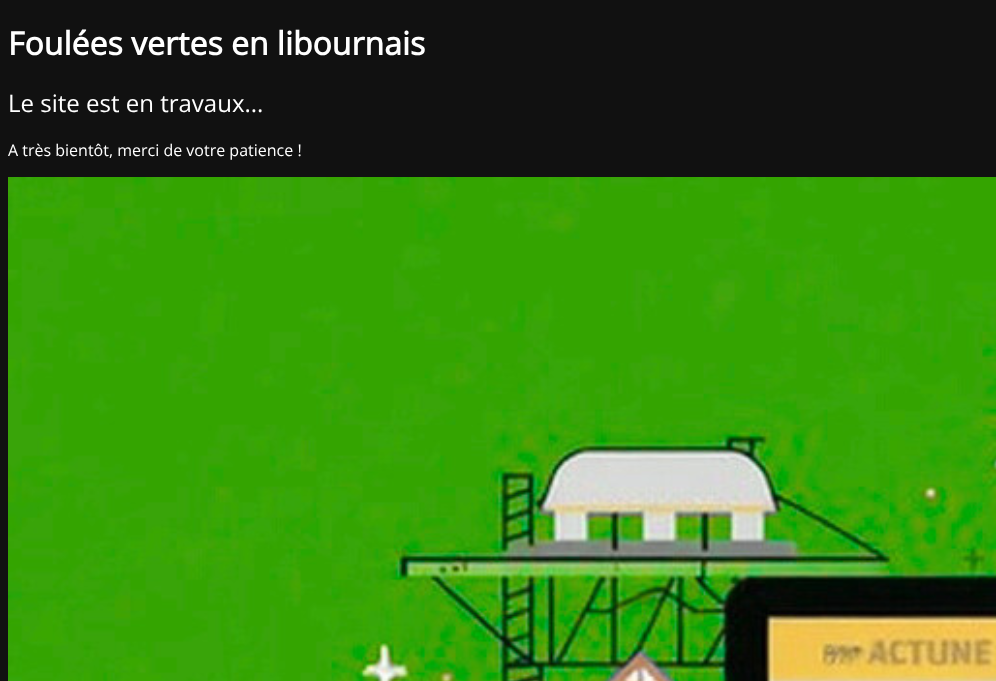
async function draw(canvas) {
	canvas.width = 996;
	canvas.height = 681;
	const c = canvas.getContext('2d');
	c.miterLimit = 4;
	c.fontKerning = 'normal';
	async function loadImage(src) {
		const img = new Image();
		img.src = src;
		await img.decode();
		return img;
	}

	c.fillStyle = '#111';
	c.fillRect(0, 0, 996, 681);
	c.font = 'bold 32px Open Sans';
	c.fillStyle = '#fff';
	c.fillText('Foulées vertes en libournais', 8, 55);
	c.font = '24px Open Sans';
	c.fillText('Le site est en travaux...', 8, 112);
	c.font = '16px Open Sans';
	c.fillText('A très bientôt, merci de votre patience !', 8, 156);
	c.drawImage(await loadImage('img1.png'), 8, 177, 988, 504);
}

draw(document.querySelector('canvas'));
